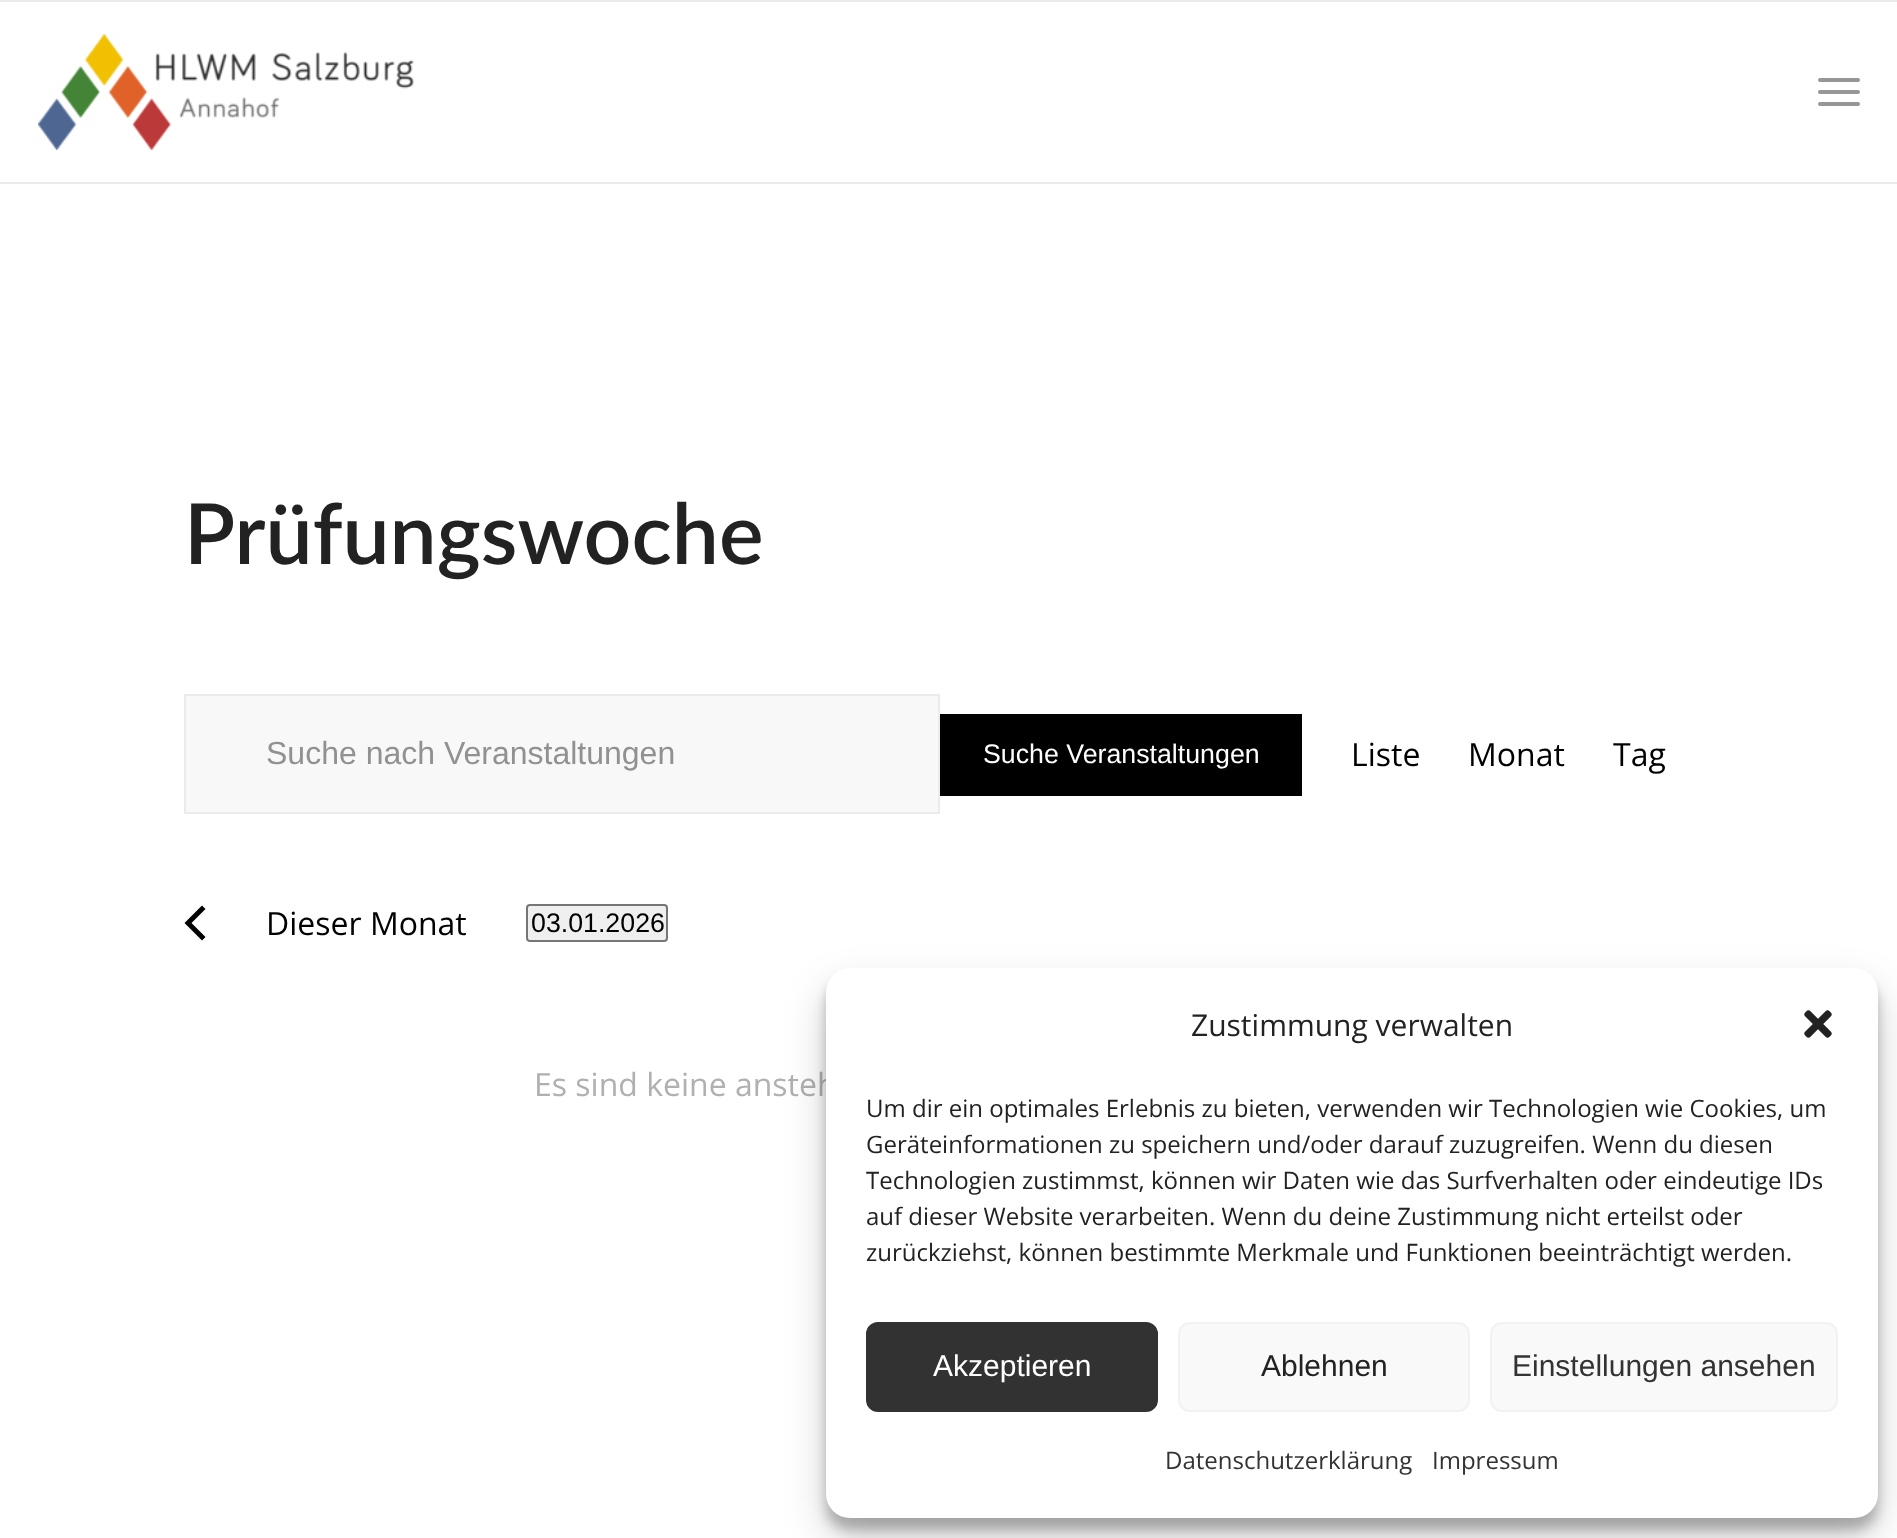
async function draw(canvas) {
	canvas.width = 1897;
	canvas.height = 1538;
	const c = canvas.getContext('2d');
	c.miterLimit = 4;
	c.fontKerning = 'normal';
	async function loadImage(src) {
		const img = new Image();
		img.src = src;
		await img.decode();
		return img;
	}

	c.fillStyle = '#fff';
	c.fillRect(0, 0, 1897, 1538);
	c.fillStyle = '#ebebeb';
	c.fillRect(0, 0, 1897, 2);
	c.fillRect(0, 182, 1897, 2);
	c.drawImage(await loadImage('img1.png'), 38, 34, 376, 116);
	c.fillStyle = '#969696';
	c.beginPath();
	c.roundRect(1818, 90, 42, 4, 2);
	c.fill();
	c.beginPath();
	c.roundRect(1818, 78, 42, 4, 2);
	c.fill();
	c.beginPath();
	c.roundRect(1818, 102, 42, 4, 2);
	c.fill();
	c.font = '600 84px Lato';
	c.fillStyle = '#222';
	c.fillText('Prüfungswoche', 184, 564);
	c.fillStyle = '#f8f8f8';
	c.beginPath();
	c.rect(185, 695, 754, 118);
	c.fill();
	c.strokeStyle = '#ebebeb';
	c.lineWidth = 2;
	c.stroke();
	c.font = '32px Liberation Sans';
	c.fillStyle = '#919191';
	c.fillText('Suche nach Veranstaltungen', 266, 764);
	c.fillStyle = '#000';
	c.fillRect(940, 714, 362, 82);
	c.font = '26.75px Liberation Sans';
	c.fillStyle = '#fff';
	c.fillText('Suche Veranstaltungen', 983, 763);
	c.font = '32px Open Sans';
	c.fillStyle = '#000';
	for (const [text, x, y] of [
		['Liste', 1351, 766],
		['Monat', 1468, 766],
		['Tag', 1613, 766],
	]) {
		c.fillText(text, x, y);
	}
	c.beginPath();
	c.moveTo(205.5, 937);
	c.lineTo(202, 940.5);
	c.lineTo(184.5, 923);
	c.lineTo(202, 905.5);
	c.lineTo(205.5, 909);
	c.lineTo(191.5, 923);
	c.closePath();
	c.fill();
	c.fillText('Dieser Monat', 266, 935);
	c.fillStyle = '#efefef';
	c.beginPath();
	c.roundRect(527, 905, 140, 36, 3);
	c.fill();
	c.strokeStyle = '#767676';
	c.stroke();
	c.font = '26.75px Liberation Sans';
	c.fillStyle = '#000';
	c.fillText('03.01.2026', 531, 932);
	c.font = '32px Open Sans';
	c.fillStyle = '#b0b0b0';
	c.fillText('Es sind keine ansteh', 534, 1096);
	c.fillStyle = '#0000003b';
	c.filter = 'blur(6px)';
	c.beginPath();
	c.roundRect(826, 980, 1052, 550, 24);
	c.fill();
	c.filter = 'none';
	c.fillStyle = '#00000030';
	c.filter = 'blur(20px)';
	c.beginPath();
	c.roundRect(826, 988, 1052, 550, 24);
	c.fill();
	c.filter = 'none';
	c.fillStyle = '#fff';
	c.beginPath();
	c.roundRect(826, 968, 1052, 550, 24);
	c.fill();
	c.font = '30px Open Sans';
	c.fillStyle = '#222';
	c.fillText('Zustimmung verwalten', 1191, 1036);
	c.drawImage(await loadImage('img2.png'), 1804, 1010, 28, 28);
	c.font = '24px Open Sans';
	for (const [text, x, y] of [
		['Um dir ein optimales Erlebnis zu bieten, verwenden wir Technologien wie Cookies, um', 866, 1117],
		['Geräteinformationen zu speichern und/oder darauf zuzugreifen. Wenn du diesen', 866, 1153],
		['Technologien zustimmst, können wir Daten wie das Surfverhalten oder eindeutige IDs', 866, 1189],
		['auf dieser Website verarbeiten. Wenn du deine Zustimmung nicht erteilst oder', 866, 1225],
		['zurückziehst, können bestimmte Merkmale und Funktionen beeinträchtigt werden.', 866, 1261],
	]) {
		c.fillText(text, x, y);
	}
	c.fillStyle = '#323232';
	c.beginPath();
	c.roundRect(867, 1323, 290, 88, 11);
	c.fill();
	c.strokeStyle = '#323232';
	c.stroke();
	c.font = '30px Liberation Sans';
	c.fillStyle = '#fff';
	c.fillText('Akzeptieren', 933, 1376);
	c.fillStyle = '#f9f9f9';
	c.beginPath();
	c.roundRect(1179, 1323, 290, 88, 11);
	c.fill();
	c.strokeStyle = '#f2f2f2';
	c.stroke();
	c.fillStyle = '#222';
	c.fillText('Ablehnen', 1261, 1376);
	c.fillStyle = '#f9f9f9';
	c.beginPath();
	c.roundRect(1491, 1323, 346, 88, 11);
	c.fill();
	c.stroke();
	c.fillStyle = '#333';
	c.fillText('Einstellungen ansehen', 1512, 1376);
	c.font = '24px Open Sans';
	c.fillText('Datenschutzerklärung', 1165, 1469);
	c.fillText('Impressum', 1432, 1469);
}

draw(document.querySelector('canvas'));
